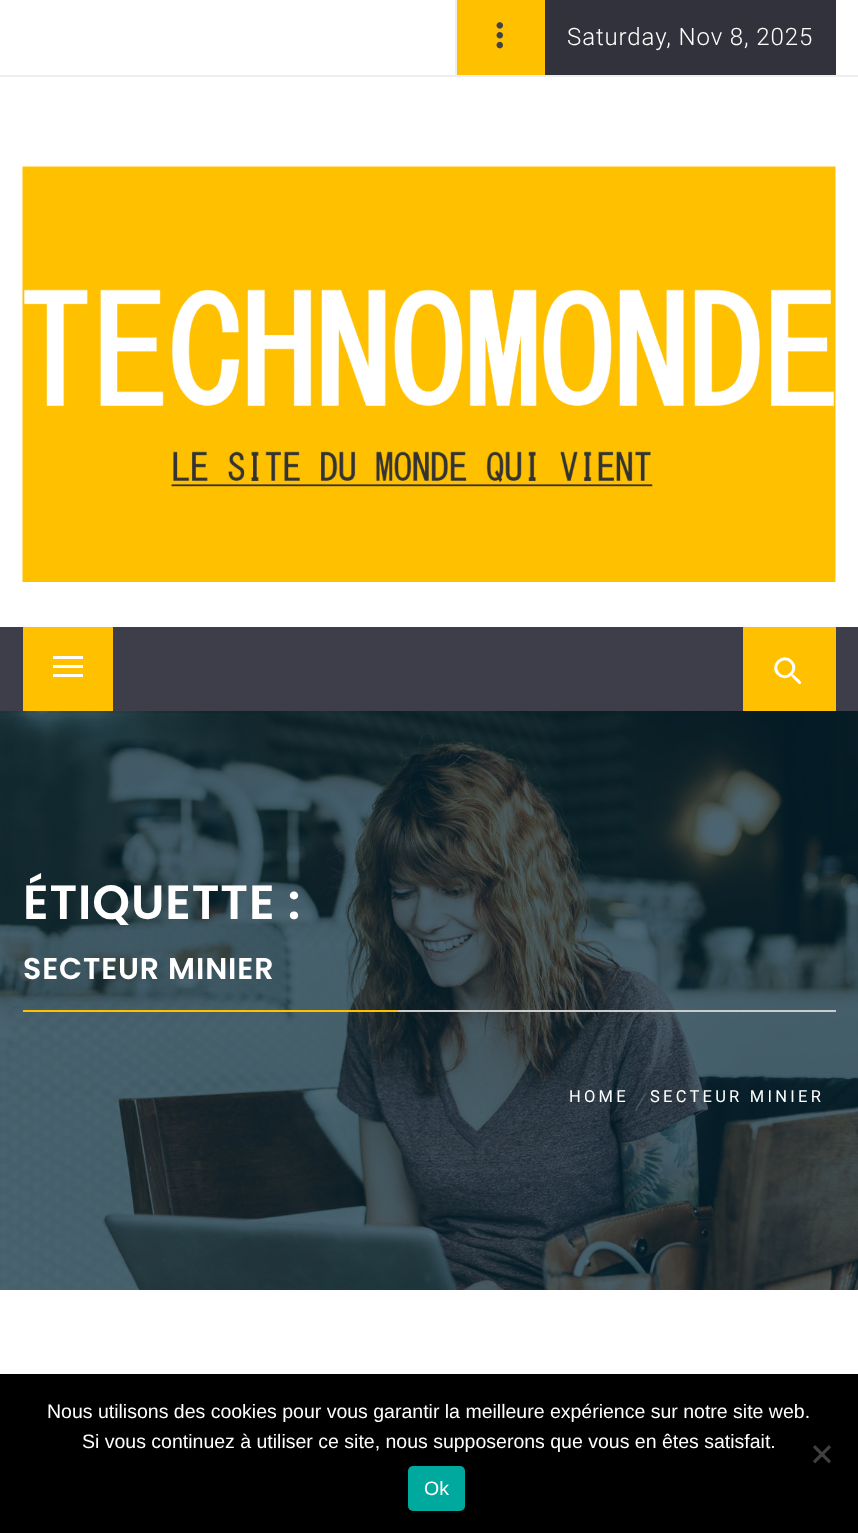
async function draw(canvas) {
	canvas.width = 858;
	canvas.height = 1533;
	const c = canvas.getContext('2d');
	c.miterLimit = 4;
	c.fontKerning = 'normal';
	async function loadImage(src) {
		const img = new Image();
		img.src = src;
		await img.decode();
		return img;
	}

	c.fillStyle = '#fff';
	c.fillRect(0, 0, 858, 1533);
	for (const [x, y, w, h, color] of [
		[0, 75, 858, 2, '#eee'],
		[457, 0, 88, 75, '#ffc000'],
		[455, 0, 2, 75, '#eee'],
	]) {
		c.fillStyle = color;
		c.fillRect(x, y, w, h);
	}
	c.drawImage(await loadImage('img1.png'), 496, 22, 7, 27);
	c.fillStyle = '#32323c';
	c.fillRect(545, 0, 291, 75);
	c.letterSpacing = '0.9px';
	c.font = '300 24px Roboto';
	c.fillStyle = '#fff';
	c.fillText('Saturday, Nov 8, 2025', 567, 45);
	c.drawImage(await loadImage('img2.png'), 22, 166, 814, 416);
	c.drawImage(await loadImage('img3.png'), 0, 711, 858, 579);
	for (const [x, y, w, h, color] of [
		[0, 711, 313, 2, '#0000000d'],
		[0, 627, 858, 84, '#3e3e4a'],
		[23, 627, 90, 84, '#ffc000'],
		[53, 665, 30, 3, '#fff'],
		[53, 656, 30, 3, '#fff'],
		[53, 674, 30, 3, '#fff'],
		[743, 627, 93, 84, '#ffc000'],
	]) {
		c.fillStyle = color;
		c.fillRect(x, y, w, h);
	}
	c.fillStyle = '#fff';
	c.beginPath();
	c.moveTo(798.5, 683.5);
	c.lineTo(777, 662);
	c.bezierCurveTo(776.5, 661, 777.5, 659.5, 779, 660);
	c.lineTo(797, 678);
	c.bezierCurveTo(797.5, 678, 802, 681.5, 801, 683.5);
	c.bezierCurveTo(800.5, 684, 799, 684.5, 798.5, 683.5);
	c.closePath();
	c.fill();
	c.fillStyle = '#ffc000';
	c.beginPath();
	c.moveTo(777.5, 675);
	c.bezierCurveTo(767.5, 665.5, 782.5, 650.5, 792, 660.5);
	c.bezierCurveTo(802, 670, 787, 685, 777.5, 675);
	c.closePath();
	c.fill();
	c.beginPath();
	c.moveTo(778.5, 674);
	c.bezierCurveTo(770, 666, 783, 653, 791, 661.5);
	c.bezierCurveTo(799.5, 669.5, 786.5, 682.5, 778.5, 674);
	c.closePath();
	c.strokeStyle = '#fff';
	c.lineWidth = 3;
	c.stroke();
	c.fillStyle = '#ccc';
	c.fillRect(398, 1010, 438, 2);
	c.font = '600 48px Poppins';
	c.fillStyle = '#fff';
	c.fillText('ÉTIQUETTE :', 23, 919);
	c.font = '600 30px Poppins';
	c.fillText('SECTEUR MINIER', 23, 979);
	c.fillStyle = '#ffc000';
	c.fillRect(23, 1010, 375, 2);
	c.letterSpacing = '3.25px';
	c.font = '16.5px Roboto';
	c.fillStyle = '#fff';
	c.fillText('HOME', 569, 1102);
	c.fillStyle = '#ffffff33';
	c.beginPath();
	c.moveTo(645, 1093);
	c.lineTo(646, 1094);
	c.lineTo(636, 1111);
	c.lineTo(635, 1110);
	c.closePath();
	c.fill();
	c.fillStyle = '#fff';
	c.fillText('SECTEUR MINIER', 650, 1102);
	c.fillStyle = '#000';
	c.fillRect(0, 1374, 858, 159);
	c.letterSpacing = '0px';
	c.font = '19.5px Liberation Sans';
	c.fillStyle = '#fff';
	c.fillText('Nous utilisons des cookies pour vous garantir la meilleure expérience sur notre site web.', 47, 1418);
	c.fillText('Si vous continuez à utiliser ce site, nous supposerons que vous en êtes satisfait.', 82, 1448);
	c.fillStyle = '#404040';
	c.beginPath();
	c.moveTo(829, 1445);
	c.lineTo(831, 1447.5);
	c.lineTo(815, 1463.5);
	c.lineTo(813, 1461);
	c.closePath();
	c.fill();
	c.beginPath();
	c.moveTo(813, 1447.5);
	c.lineTo(815, 1445);
	c.lineTo(831, 1461);
	c.lineTo(829, 1463.5);
	c.closePath();
	c.fill();
	c.fillStyle = '#00a99d';
	c.beginPath();
	c.roundRect(408, 1466, 57, 45, 5);
	c.fill();
	c.fillStyle = '#fff';
	c.fillText('Ok', 424, 1495);
}

draw(document.querySelector('canvas'));
